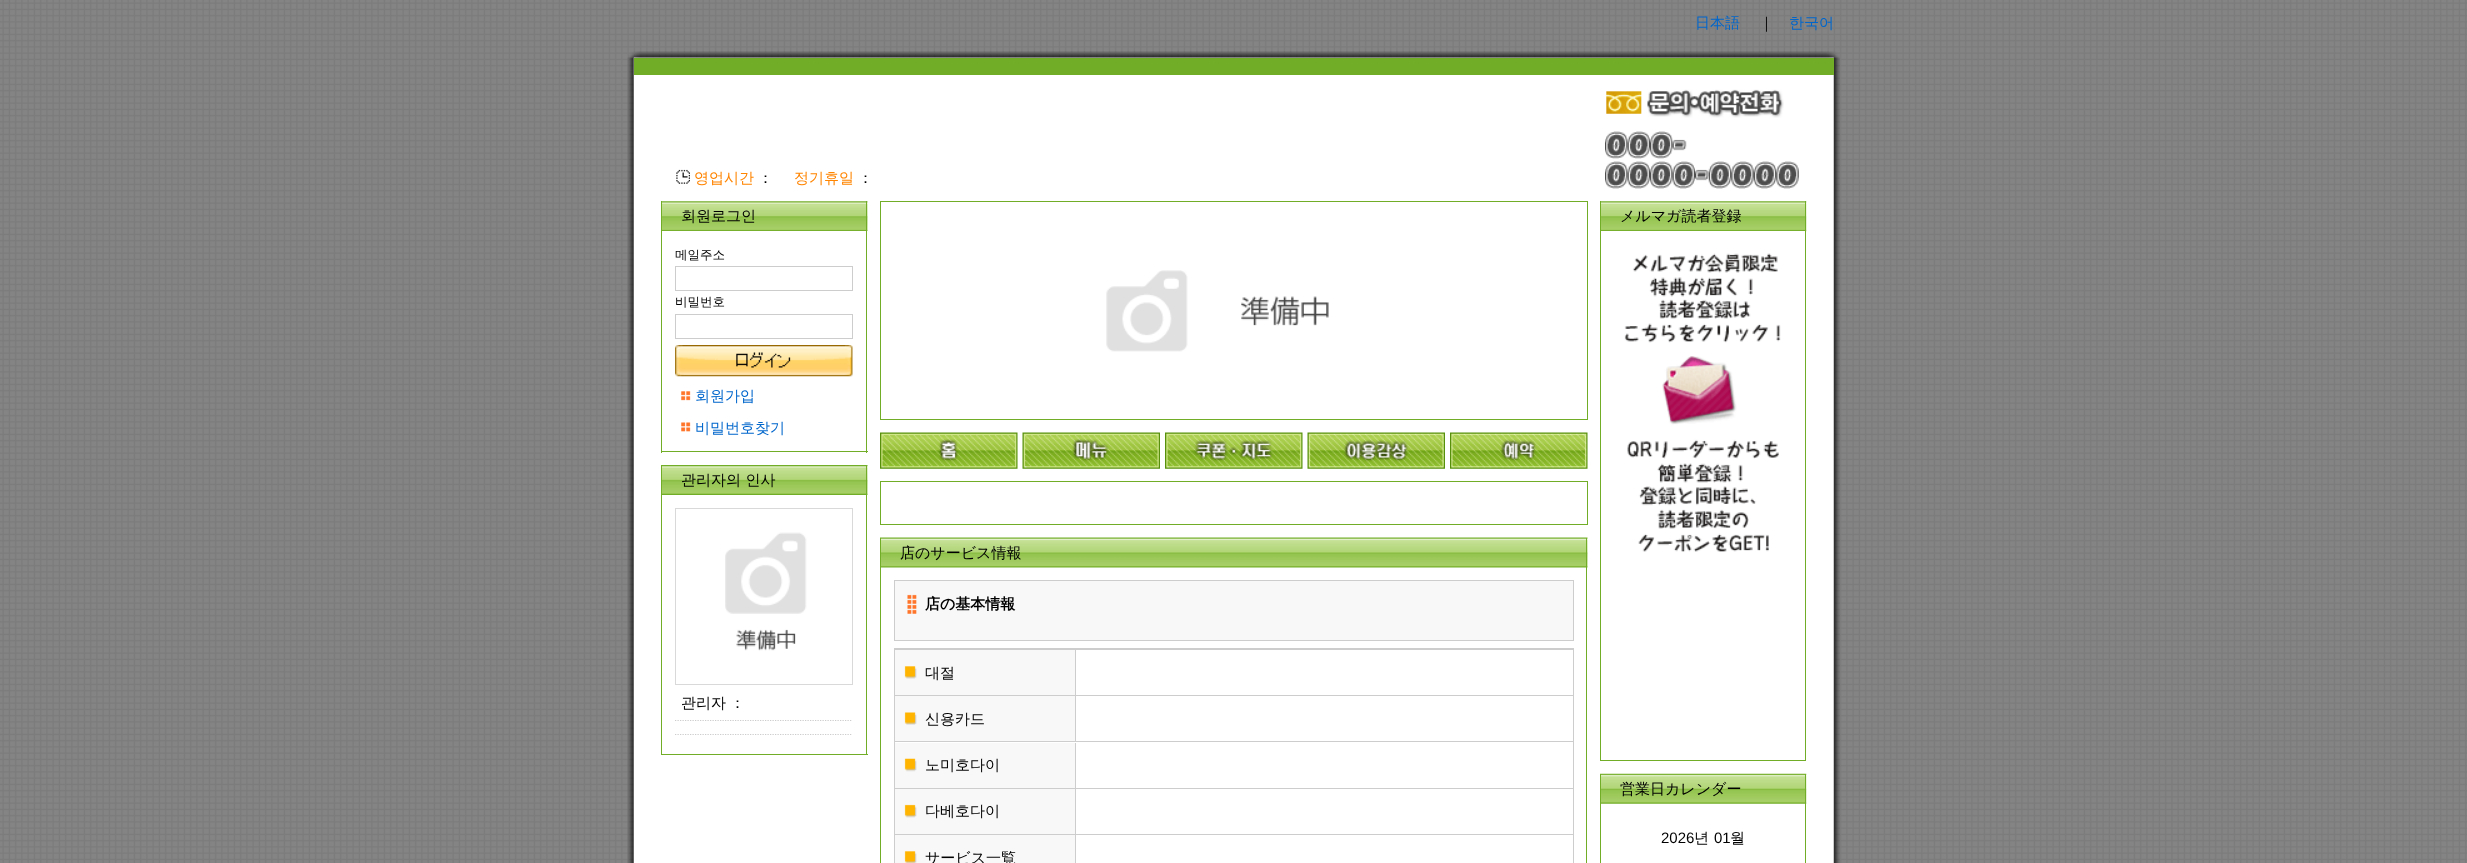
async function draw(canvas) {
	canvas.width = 2467;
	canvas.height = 863;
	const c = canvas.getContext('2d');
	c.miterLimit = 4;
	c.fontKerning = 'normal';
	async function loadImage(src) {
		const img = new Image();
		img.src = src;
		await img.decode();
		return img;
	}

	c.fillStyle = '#fff';
	c.fillRect(0, 0, 2467, 863);
	c.drawImage(await loadImage('img1.png'), 0, 0, 2467, 863);
	c.font = '500 15px WenQuanYi Zen Hei';
	c.fillStyle = '#06c';
	c.fillText('日本語', 1695, 28);
	c.fillStyle = '#000';
	c.fillText('｜', 1759, 28);
	c.fillStyle = '#06c';
	c.fillText('한국어', 1789, 28);
	c.drawImage(await loadImage('img3.png'), 627, 57, 1213, 806);
	c.drawImage(await loadImage('img2.png'), 628, 51, 1212, 7);
	c.fillStyle = '#72ad27';
	c.fillRect(634, 58, 1200, 17);
	c.drawImage(await loadImage('img4.png'), 676, 169, 14, 15);
	c.fillStyle = '#ff8400';
	c.fillText('영업시간', 694, 183);
	c.fillStyle = '#000';
	c.fillText('：', 758, 183);
	c.fillStyle = '#ff8400';
	c.fillText('정기휴일', 794, 183);
	c.fillStyle = '#000';
	c.fillText('：', 858, 183);
	c.drawImage(await loadImage('img5.png'), 1606, 89, 178, 29);
	c.drawImage(await loadImage('img6.png'), 1605, 131, 23, 28);
	c.drawImage(await loadImage('img7.png'), 1627, 131, 23, 28);
	c.drawImage(await loadImage('img6.png'), 1650, 131, 23, 28);
	c.drawImage(await loadImage('img8.png'), 1672, 137, 15, 15);
	c.fillStyle = '#ffffff40';
	c.fillRect(1612, 158, 52, 1);
	c.drawImage(await loadImage('img6.png'), 1605, 161, 23, 28);
	c.drawImage(await loadImage('img7.png'), 1627, 161, 23, 28);
	c.drawImage(await loadImage('img6.png'), 1650, 161, 23, 28);
	c.drawImage(await loadImage('img7.png'), 1672, 161, 23, 28);
	c.drawImage(await loadImage('img9.png'), 1695, 169, 14, 12);
	c.drawImage(await loadImage('img10.png'), 1708, 161, 24, 28);
	c.drawImage(await loadImage('img11.png'), 1731, 161, 23, 28);
	c.drawImage(await loadImage('img12.png'), 1753, 161, 24, 28);
	c.drawImage(await loadImage('img11.png'), 1776, 161, 23, 28);
	c.drawImage(await loadImage('img13.png'), 662, 201, 206, 30);
	c.fillStyle = '#72ad27';
	c.fillRect(866, 201, 1, 252);
	c.fillRect(661, 201, 1, 30);
	c.fillStyle = '#000';
	c.fillText('회원로그인', 681, 221);
	c.fillStyle = '#72ad27';
	c.fillRect(661, 451, 207, 1);
	c.fillRect(661, 231, 1, 222);
	c.font = '500 12.5px WenQuanYi Zen Hei';
	c.fillStyle = '#000';
	c.fillText('메일주소', 675, 259);
	c.strokeStyle = '#cdcdcd';
	c.strokeRect(675.5, 266.5, 177, 24);
	c.fillText('비밀번호', 675, 306);
	c.strokeRect(675.5, 314.5, 177, 24);
	c.drawImage(await loadImage('img14.png'), 675, 345, 178, 32);
	c.drawImage(await loadImage('img15.png'), 681, 391, 10, 10);
	c.font = '500 15px WenQuanYi Zen Hei';
	c.fillStyle = '#06c';
	c.fillText('회원가입', 695, 401);
	c.drawImage(await loadImage('img16.png'), 681, 422, 10, 10);
	c.fillText('비밀번호찾기', 695, 433);
	c.drawImage(await loadImage('img17.png'), 662, 465, 206, 30);
	c.fillStyle = '#72ad27';
	c.fillRect(866, 465, 1, 290);
	c.fillRect(661, 465, 1, 30);
	c.fillStyle = '#000';
	c.fillText('관리자의 인사', 681, 485);
	c.fillStyle = '#72ad27';
	c.fillRect(661, 754, 207, 1);
	c.fillRect(661, 495, 1, 260);
	c.strokeStyle = '#d9d9d9';
	c.strokeRect(675.5, 508.5, 177, 176);
	c.drawImage(await loadImage('img18.png'), 725, 532, 82, 119);
	c.beginPath();
	c.moveTo(675, 720.5);
	c.lineTo(852.5, 720.5);
	c.strokeStyle = '#ccc';
	c.lineWidth = 1.2;
	c.setLineDash([1.25, 1.25]);
	c.stroke();
	c.fillStyle = '#000';
	c.fillText('관리자', 681, 708);
	c.fillText('：', 730, 708);
	c.beginPath();
	c.moveTo(675, 734.5);
	c.lineTo(852.5, 734.5);
	c.stroke();
	c.strokeStyle = '#72ad27';
	c.lineWidth = 1;
	c.setLineDash([]);
	c.strokeRect(880.5, 201.5, 707, 218);
	c.drawImage(await loadImage('img19.png'), 1106, 270, 223, 82);
	c.drawImage(await loadImage('img20.png'), 880, 432, 138, 37);
	c.drawImage(await loadImage('img21.png'), 1022, 432, 138, 37);
	c.drawImage(await loadImage('img22.png'), 1165, 432, 138, 37);
	c.drawImage(await loadImage('img23.png'), 1307, 432, 138, 37);
	c.drawImage(await loadImage('img24.png'), 1450, 432, 138, 37);
	c.strokeRect(880.5, 481.5, 707, 43);
	c.drawImage(await loadImage('img25.png'), 880, 537, 708, 31);
	c.fillStyle = '#72ad27';
	c.fillRect(1586, 538, 1, 325);
	c.fillRect(880, 538, 1, 325);
	c.fillStyle = '#000';
	c.fillText('店のサービス情報', 900, 558);
	c.strokeStyle = '#cdcdcd';
	c.strokeRect(894.5, 580.5, 679, 60);
	c.fillStyle = '#f8f8f8';
	c.fillRect(895, 581, 678, 59);
	c.drawImage(await loadImage('img26.png'), 907, 594, 10, 20);
	c.font = 'bold 15px WenQuanYi Zen Hei';
	c.fillStyle = '#000';
	c.fillText('店の基本情報', 925, 609);
	for (const [x, y, w, h, color] of [
		[894, 648, 680, 2, '#cdcdcd'],
		[1573, 650, 1, 213, '#cdcdcd'],
		[894, 695, 680, 1, '#cdcdcd'],
		[894, 650, 1, 46, '#cdcdcd'],
		[895, 650, 180, 45, '#f8f8f8'],
	]) {
		c.fillStyle = color;
		c.fillRect(x, y, w, h);
	}
	c.drawImage(await loadImage('img27.png'), 904, 666, 13, 13);
	c.fillStyle = '#cdcdcd';
	c.fillRect(1075, 650, 1, 45);
	c.font = '500 15px WenQuanYi Zen Hei';
	c.fillStyle = '#000';
	c.fillText('대절', 925, 678);
	for (const [x, y, w, h, color] of [
		[894, 741, 680, 1, '#cdcdcd'],
		[894, 696, 1, 47, '#cdcdcd'],
		[895, 696, 180, 45, '#f8f8f8'],
	]) {
		c.fillStyle = color;
		c.fillRect(x, y, w, h);
	}
	c.drawImage(await loadImage('img28.png'), 904, 712, 13, 13);
	c.fillStyle = '#cdcdcd';
	c.fillRect(1075, 696, 1, 45);
	c.fillStyle = '#000';
	c.fillText('신용카드', 925, 724);
	for (const [x, y, w, h, color] of [
		[894, 788, 680, 1, '#cdcdcd'],
		[894, 743, 1, 46, '#cdcdcd'],
		[895, 743, 180, 45, '#f8f8f8'],
	]) {
		c.fillStyle = color;
		c.fillRect(x, y, w, h);
	}
	c.drawImage(await loadImage('img29.png'), 904, 758, 13, 14);
	c.fillStyle = '#cdcdcd';
	c.fillRect(1075, 743, 1, 45);
	c.fillStyle = '#000';
	c.fillText('노미호다이', 925, 770);
	for (const [x, y, w, h, color] of [
		[894, 834, 680, 1, '#cdcdcd'],
		[894, 789, 1, 74, '#cdcdcd'],
		[895, 789, 180, 45, '#f8f8f8'],
	]) {
		c.fillStyle = color;
		c.fillRect(x, y, w, h);
	}
	c.drawImage(await loadImage('img30.png'), 904, 804, 13, 14);
	c.fillStyle = '#cdcdcd';
	c.fillRect(1075, 789, 1, 45);
	c.fillStyle = '#000';
	c.fillText('다베호다이', 925, 816);
	c.fillStyle = '#f8f8f8';
	c.fillRect(895, 835, 180, 28);
	c.drawImage(await loadImage('img31.png'), 904, 851, 13, 12);
	c.fillStyle = '#cdcdcd';
	c.fillRect(1075, 835, 1, 28);
	c.fillStyle = '#000';
	c.fillText('サービス一覧', 925, 863);
	c.drawImage(await loadImage('img32.png'), 1601, 201, 206, 31);
	c.fillStyle = '#72ad27';
	c.fillRect(1805, 201, 1, 560);
	c.fillRect(1600, 201, 1, 30);
	c.fillStyle = '#000';
	c.fillText('メルマガ読者登録', 1620, 221);
	for (const [x, y, w, h, color] of [
		[1601, 231, 204, 1, '#fff'],
		[1600, 760, 206, 1, '#72ad27'],
		[1600, 231, 1, 530, '#72ad27'],
	]) {
		c.fillStyle = color;
		c.fillRect(x, y, w, h);
	}
	c.drawImage(await loadImage('img33.png'), 1624, 253, 157, 299);
	c.drawImage(await loadImage('img34.png'), 1600, 773, 207, 31);
	c.fillRect(1805, 774, 1, 89);
	c.fillRect(1600, 774, 1, 89);
	c.fillStyle = '#000';
	c.fillText('営業日カレンダー', 1620, 794);
	c.font = '15px Liberation Sans';
	c.fillText('2026', 1661, 843);
	c.font = '500 15px WenQuanYi Zen Hei';
	c.fillText('년', 1694, 843);
	c.font = '15px Liberation Sans';
	c.fillText('01', 1714, 843);
	c.font = '500 15px WenQuanYi Zen Hei';
	c.fillText('월', 1730, 843);
}

draw(document.querySelector('canvas'));
